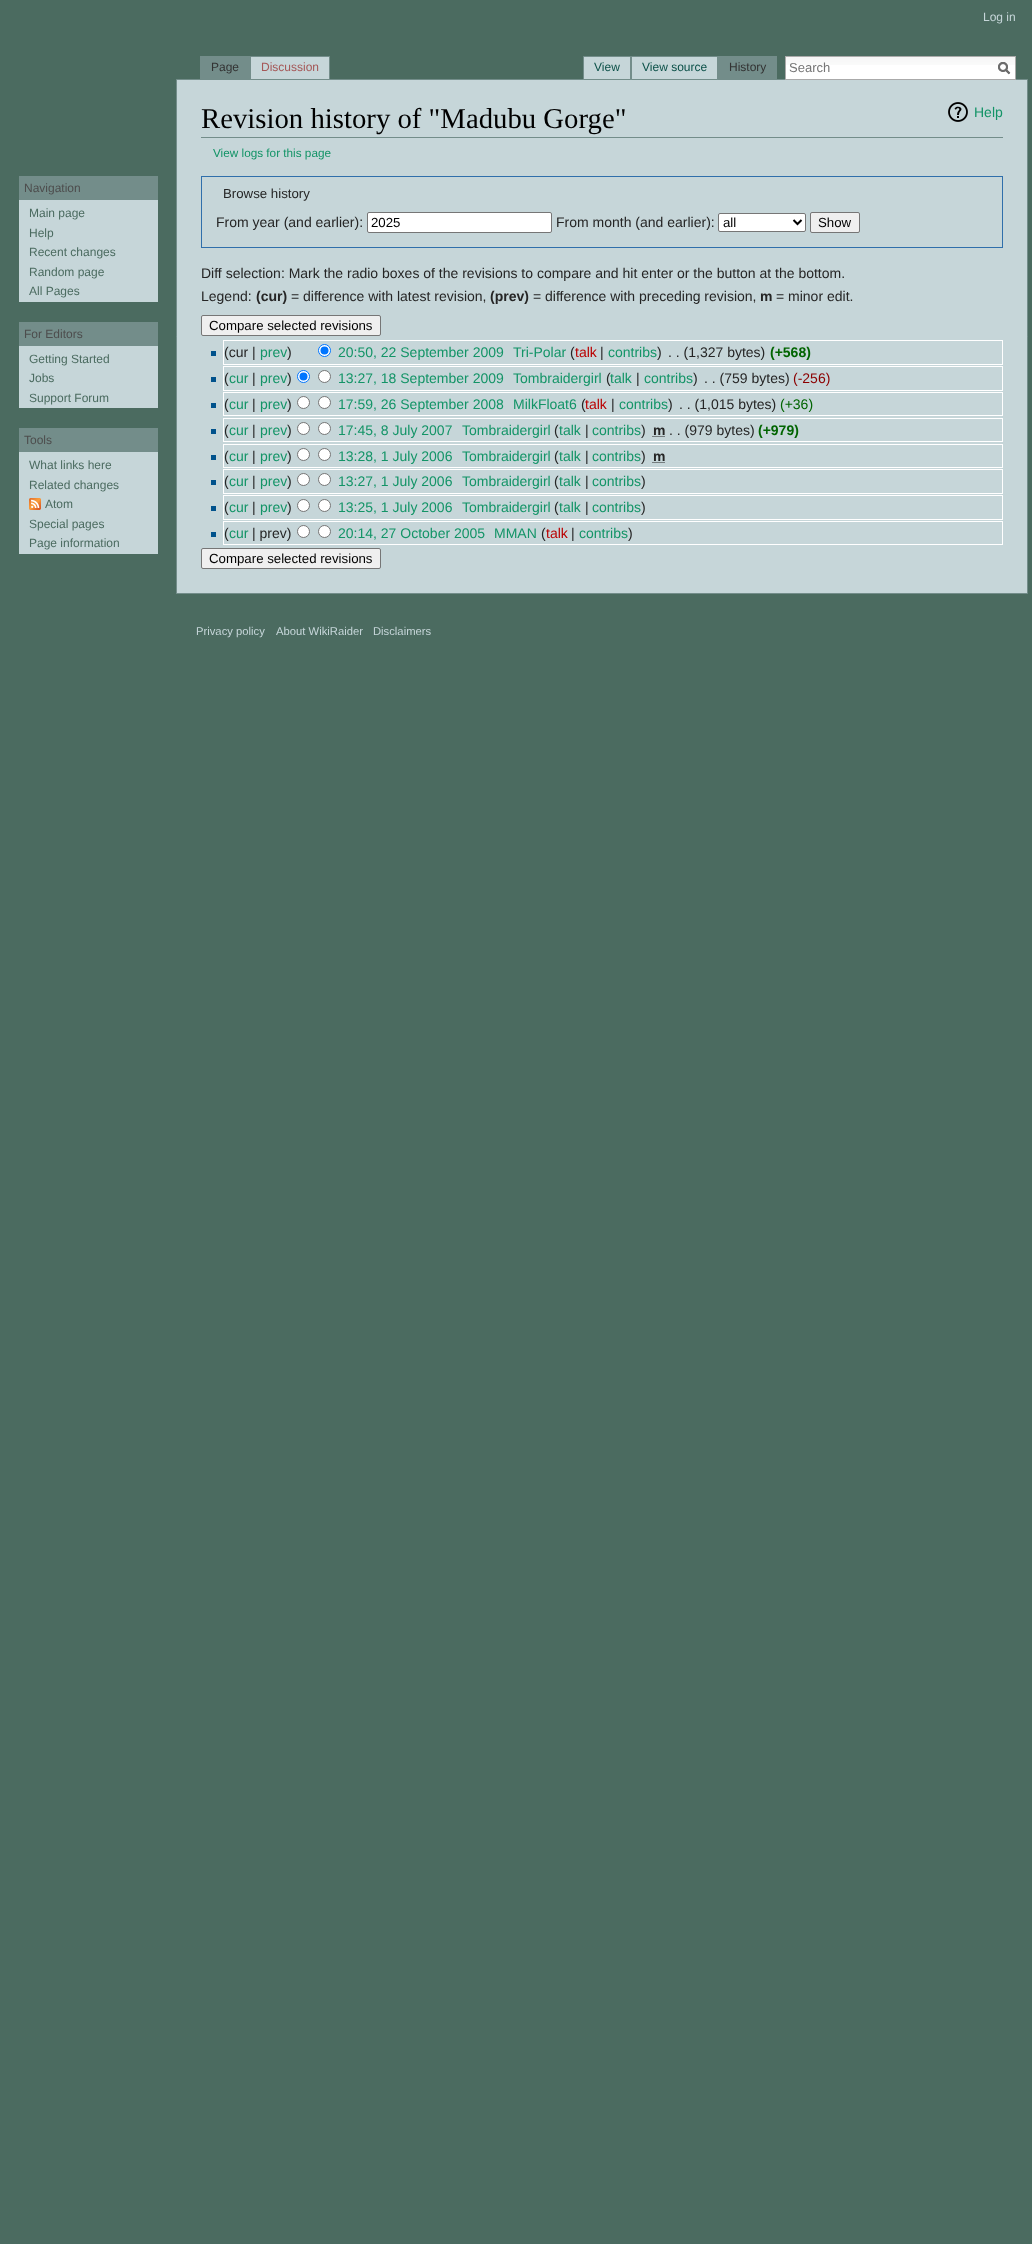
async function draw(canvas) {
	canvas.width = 1032;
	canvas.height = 2244;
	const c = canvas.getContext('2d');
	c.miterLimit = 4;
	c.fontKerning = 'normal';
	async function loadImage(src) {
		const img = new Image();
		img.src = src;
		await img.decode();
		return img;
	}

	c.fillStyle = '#4b6b60';
	c.fillRect(0, 0, 1032, 2244);
	c.font = '12px Liberation Sans';
	c.fillStyle = '#c6d6d9';
	c.fillText('Log in', 983, 21);
	c.fillStyle = '#738d8a';
	c.fillRect(200, 56, 50, 23);
	c.fillStyle = '#333';
	c.fillText('Page', 211, 71);
	c.fillStyle = '#c6d6d9';
	c.beginPath();
	c.rect(176.5, 79.5, 851, 514);
	c.fill();
	c.strokeStyle = '#738d8a';
	c.stroke();
	c.beginPath();
	c.rect(250.5, 56.5, 79, 23);
	c.fill();
	c.stroke();
	c.fillStyle = '#a55858';
	c.fillText('Discussion', 261, 71);
	c.fillStyle = '#c6d6d9';
	c.beginPath();
	c.rect(583.5, 56.5, 47, 23);
	c.fill();
	c.stroke();
	c.fillStyle = '#0b5048';
	c.fillText('View', 594, 71);
	c.fillStyle = '#c6d6d9';
	c.beginPath();
	c.rect(631.5, 56.5, 86, 23);
	c.fill();
	c.stroke();
	c.fillStyle = '#0b5048';
	c.fillText('View source', 642, 71);
	c.fillStyle = '#738d8a';
	c.fillRect(718, 56, 59, 23);
	c.fillStyle = '#333';
	c.fillText('History', 729, 71);
	c.fillStyle = '#fff';
	c.fillRect(786, 65, 229, 14);
	c.drawImage(await loadImage('img1.png'), 786, 57, 229, 8);
	c.strokeStyle = '#aaa';
	c.strokeRect(785.5, 56.5, 230, 23);
	c.font = '13px Liberation Sans';
	c.fillStyle = '#757575';
	c.fillText('Search', 789, 72);
	c.beginPath();
	c.moveTo(1009.5, 73.5);
	c.lineTo(1005.5, 69.5);
	c.strokeStyle = '#6c6c6c';
	c.lineWidth = 2;
	c.stroke();
	c.beginPath();
	c.arc(1003, 67, 4, 0, 2 * Math.PI);
	c.stroke();
	c.beginPath();
	c.moveTo(1009.5, 73.5);
	c.lineTo(1005.5, 69.5);
	c.stroke();
	c.beginPath();
	c.arc(1003, 67, 4, 0, 2 * Math.PI);
	c.stroke();
	c.fillStyle = '#c6d6d9';
	c.fillRect(19, 200, 139, 102);
	c.fillStyle = '#738d8a';
	c.fillRect(19, 176, 139, 24);
	c.font = '12px Liberation Sans';
	c.fillStyle = '#4d4d4d';
	c.fillText('Navigation', 24, 192);
	c.fillStyle = '#4b6b60';
	for (const [text, x, y] of [
		['Main page', 29, 217],
		['Help', 29, 237],
		['Recent changes', 29, 256],
		['Random page', 29, 276],
		['All Pages', 29, 295],
	]) {
		c.fillText(text, x, y);
	}
	c.fillStyle = '#c6d6d9';
	c.fillRect(19, 346, 139, 62);
	c.fillStyle = '#738d8a';
	c.fillRect(19, 322, 139, 24);
	c.fillStyle = '#4d4d4d';
	c.fillText('For Editors', 24, 338);
	c.fillStyle = '#4b6b60';
	for (const [text, x, y] of [
		['Getting Started', 29, 363],
		['Jobs', 29, 382],
		['Support Forum', 29, 402],
	]) {
		c.fillText(text, x, y);
	}
	c.fillStyle = '#c6d6d9';
	c.fillRect(19, 452, 139, 102);
	c.fillStyle = '#738d8a';
	c.fillRect(19, 428, 139, 24);
	c.fillStyle = '#4d4d4d';
	c.fillText('Tools', 24, 444);
	c.fillStyle = '#4b6b60';
	c.fillText('What links here', 29, 469);
	c.fillText('Related changes', 29, 489);
	c.drawImage(await loadImage('img2.png'), 29, 498, 12, 12);
	for (const [text, x, y] of [
		['Atom', 45, 508],
		['Special pages', 29, 528],
		['Page information', 29, 547],
	]) {
		c.fillText(text, x, y);
	}
	c.fillStyle = '#738d8a';
	c.fillRect(201, 137, 802, 1);
	c.font = '28.75px Liberation Serif';
	c.fillStyle = '#000';
	c.fillText('Revision history of "Madubu Gorge"', 201, 128);
	c.drawImage(await loadImage('img3.png'), 948, 102, 20, 20);
	c.font = '14px Liberation Sans';
	c.fillStyle = '#139467';
	c.fillText('Help', 974, 117);
	c.font = '11.75px Liberation Sans';
	c.fillText('View logs for this page', 213, 157);
	c.strokeStyle = '#2f6fab';
	c.lineWidth = 1;
	c.strokeRect(201.5, 176.5, 801, 71);
	c.font = '13.25px Liberation Sans';
	c.fillStyle = '#252525';
	c.fillText('Browse history', 223, 198);
	c.font = '14px Liberation Sans';
	c.fillText('From year (and earlier):', 216, 227);
	c.fillStyle = '#fff';
	c.beginPath();
	c.roundRect(367.5, 212.5, 184, 20, 1.5);
	c.fill();
	c.strokeStyle = '#767676';
	c.stroke();
	c.font = '13.25px Liberation Sans';
	c.fillStyle = '#000';
	c.fillText('2025', 371, 227);
	c.font = '14px Liberation Sans';
	c.fillStyle = '#252525';
	c.fillText('From month (and earlier):', 556, 227);
	c.fillStyle = '#fff';
	c.beginPath();
	c.roundRect(718.5, 213.5, 87, 18, 1.5);
	c.fill();
	c.stroke();
	c.beginPath();
	c.moveTo(793.5, 220);
	c.lineTo(797.5, 224);
	c.lineTo(801.5, 220);
	c.strokeStyle = '#000';
	c.lineWidth = 2;
	c.stroke();
	c.font = '13.25px Liberation Sans';
	c.fillStyle = '#000';
	c.fillText('all', 723, 227);
	c.fillStyle = '#efefef';
	c.beginPath();
	c.roundRect(810.5, 212.5, 49, 20, 1.5);
	c.fill();
	c.strokeStyle = '#767676';
	c.lineWidth = 1;
	c.stroke();
	c.fillStyle = '#000';
	c.fillText('Show', 818, 227);
	c.font = '14px Liberation Sans';
	c.fillStyle = '#252525';
	c.fillText('Diff selection: Mark the radio boxes of the revisions to compare and hit enter or the button at the bottom.', 201, 278);
	c.fillText('Legend:', 201, 301);
	c.font = 'bold 14px Liberation Sans';
	c.fillText('(cur)', 256, 301);
	c.font = '14px Liberation Sans';
	c.fillText('= difference with latest revision,', 291, 301);
	c.font = 'bold 14px Liberation Sans';
	c.fillText('(prev)', 490, 301);
	c.font = '14px Liberation Sans';
	c.fillText('= difference with preceding revision,', 533, 301);
	c.font = 'bold 14px Liberation Sans';
	c.fillText('m', 760, 301);
	c.font = '14px Liberation Sans';
	c.fillText('= minor edit.', 776, 301);
	c.fillStyle = '#efefef';
	c.beginPath();
	c.roundRect(201.5, 315.5, 179, 20, 1.5);
	c.fill();
	c.stroke();
	c.font = '13.25px Liberation Sans';
	c.fillStyle = '#000';
	c.fillText('Compare selected revisions', 209, 330);
	c.strokeStyle = '#fff';
	c.strokeRect(223.5, 340.5, 779, 24);
	c.fillStyle = '#00528c';
	c.fillRect(211, 351, 5, 5);
	c.font = '14px Liberation Sans';
	c.fillStyle = '#252525';
	c.fillText('(cur |', 224, 357);
	c.fillStyle = '#139467';
	c.fillText('prev', 260, 357);
	c.fillStyle = '#252525';
	c.fillText(')', 287, 357);
	c.fillStyle = '#fff';
	c.beginPath();
	c.arc(324.5, 350.5, 6, 0, 2 * Math.PI);
	c.fill();
	c.strokeStyle = '#0075ff';
	c.stroke();
	c.fillStyle = '#0075ff';
	c.beginPath();
	c.arc(324.5, 350.5, 4, 0, 2 * Math.PI);
	c.fill();
	c.fillStyle = '#139467';
	c.fillText('20:50, 22 September 2009', 338, 357);
	c.fillText('Tri-Polar', 513, 357);
	c.fillStyle = '#252525';
	c.fillText('(', 570, 357);
	c.fillStyle = '#ba0000';
	c.fillText('talk', 575, 357);
	c.fillStyle = '#252525';
	c.fillText('|', 600, 357);
	c.fillStyle = '#139467';
	c.fillText('contribs', 608, 357);
	c.fillStyle = '#252525';
	c.fillText(')', 657, 357);
	c.fillText('. . (1,327 bytes)', 668, 357);
	c.font = 'bold 14px Liberation Sans';
	c.fillStyle = '#006400';
	c.fillText('(+568)', 770, 357);
	c.strokeStyle = '#fff';
	c.strokeRect(223.5, 366.5, 779, 24);
	c.fillStyle = '#00528c';
	c.fillRect(211, 377, 5, 5);
	c.font = '14px Liberation Sans';
	c.fillStyle = '#252525';
	c.fillText('(', 224, 383);
	c.fillStyle = '#139467';
	c.fillText('cur', 229, 383);
	c.fillStyle = '#252525';
	c.fillText('|', 252, 383);
	c.fillStyle = '#139467';
	c.fillText('prev', 260, 383);
	c.fillStyle = '#252525';
	c.fillText(')', 287, 383);
	c.fillStyle = '#fff';
	c.beginPath();
	c.arc(303.5, 376.5, 6, 0, 2 * Math.PI);
	c.fill();
	c.strokeStyle = '#0075ff';
	c.stroke();
	c.fillStyle = '#0075ff';
	c.beginPath();
	c.arc(303.5, 376.5, 4, 0, 2 * Math.PI);
	c.fill();
	c.fillStyle = '#fff';
	c.beginPath();
	c.arc(324.5, 376.5, 6, 0, 2 * Math.PI);
	c.fill();
	c.strokeStyle = '#767676';
	c.stroke();
	c.fillStyle = '#139467';
	c.fillText('13:27, 18 September 2009', 338, 383);
	c.fillText('Tombraidergirl', 513, 383);
	c.fillStyle = '#252525';
	c.fillText('(', 606, 383);
	c.fillStyle = '#139467';
	c.fillText('talk', 610, 383);
	c.fillStyle = '#252525';
	c.fillText('|', 636, 383);
	c.fillStyle = '#139467';
	c.fillText('contribs', 644, 383);
	c.fillStyle = '#252525';
	c.fillText(')', 693, 383);
	c.fillText('. . (759 bytes)', 704, 383);
	c.fillStyle = '#8b0000';
	c.fillText('(-256)', 793, 383);
	c.strokeStyle = '#fff';
	c.strokeRect(223.5, 392.5, 779, 23);
	c.fillStyle = '#00528c';
	c.fillRect(211, 403, 5, 5);
	c.fillStyle = '#252525';
	c.fillText('(', 224, 409);
	c.fillStyle = '#139467';
	c.fillText('cur', 229, 409);
	c.fillStyle = '#252525';
	c.fillText('|', 252, 409);
	c.fillStyle = '#139467';
	c.fillText('prev', 260, 409);
	c.fillStyle = '#252525';
	c.fillText(')', 287, 409);
	c.fillStyle = '#fff';
	c.beginPath();
	c.arc(303.5, 402.5, 6, 0, 2 * Math.PI);
	c.fill();
	c.strokeStyle = '#767676';
	c.stroke();
	c.beginPath();
	c.arc(324.5, 402.5, 6, 0, 2 * Math.PI);
	c.fill();
	c.stroke();
	c.fillStyle = '#139467';
	c.fillText('17:59, 26 September 2008', 338, 409);
	c.fillText('MilkFloat6', 513, 409);
	c.fillStyle = '#252525';
	c.fillText('(', 581, 409);
	c.fillStyle = '#ba0000';
	c.fillText('talk', 585, 409);
	c.fillStyle = '#252525';
	c.fillText('|', 611, 409);
	c.fillStyle = '#139467';
	c.fillText('contribs', 619, 409);
	c.fillStyle = '#252525';
	c.fillText(')', 668, 409);
	c.fillText('. . (1,015 bytes)', 679, 409);
	c.fillStyle = '#006400';
	c.fillText('(+36)', 780, 409);
	c.strokeStyle = '#fff';
	c.strokeRect(223.5, 418.5, 779, 23);
	c.fillStyle = '#00528c';
	c.fillRect(211, 429, 5, 5);
	c.fillStyle = '#252525';
	c.fillText('(', 224, 435);
	c.fillStyle = '#139467';
	c.fillText('cur', 229, 435);
	c.fillStyle = '#252525';
	c.fillText('|', 252, 435);
	c.fillStyle = '#139467';
	c.fillText('prev', 260, 435);
	c.fillStyle = '#252525';
	c.fillText(')', 287, 435);
	c.fillStyle = '#fff';
	c.beginPath();
	c.arc(303.5, 428.5, 6, 0, 2 * Math.PI);
	c.fill();
	c.strokeStyle = '#767676';
	c.stroke();
	c.beginPath();
	c.arc(324.5, 428.5, 6, 0, 2 * Math.PI);
	c.fill();
	c.stroke();
	c.fillStyle = '#139467';
	c.fillText('17:45, 8 July 2007', 338, 435);
	c.fillText('Tombraidergirl', 462, 435);
	c.fillStyle = '#252525';
	c.fillText('(', 554, 435);
	c.fillStyle = '#139467';
	c.fillText('talk', 559, 435);
	c.fillStyle = '#252525';
	c.fillText('|', 585, 435);
	c.fillStyle = '#139467';
	c.fillText('contribs', 592, 435);
	c.fillStyle = '#252525';
	c.fillText(')', 641, 435);
	c.font = 'bold 14px Liberation Sans';
	c.fillText('m', 653, 435);
	c.beginPath();
	c.moveTo(652.5, 436.5);
	c.lineTo(665, 436.5);
	c.strokeStyle = '#252525';
	c.setLineDash([1, 1]);
	c.stroke();
	c.font = '14px Liberation Sans';
	c.fillText('. . (979 bytes)', 669, 435);
	c.font = 'bold 14px Liberation Sans';
	c.fillStyle = '#006400';
	c.fillText('(+979)', 758, 435);
	c.strokeStyle = '#fff';
	c.setLineDash([]);
	c.strokeRect(223.5, 444.5, 779, 23);
	c.fillStyle = '#00528c';
	c.fillRect(211, 455, 5, 5);
	c.font = '14px Liberation Sans';
	c.fillStyle = '#252525';
	c.fillText('(', 224, 461);
	c.fillStyle = '#139467';
	c.fillText('cur', 229, 461);
	c.fillStyle = '#252525';
	c.fillText('|', 252, 461);
	c.fillStyle = '#139467';
	c.fillText('prev', 260, 461);
	c.fillStyle = '#252525';
	c.fillText(')', 287, 461);
	c.fillStyle = '#fff';
	c.beginPath();
	c.arc(303.5, 454.5, 6, 0, 2 * Math.PI);
	c.fill();
	c.strokeStyle = '#767676';
	c.stroke();
	c.beginPath();
	c.arc(324.5, 454.5, 6, 0, 2 * Math.PI);
	c.fill();
	c.stroke();
	c.fillStyle = '#139467';
	c.fillText('13:28, 1 July 2006', 338, 461);
	c.fillText('Tombraidergirl', 462, 461);
	c.fillStyle = '#252525';
	c.fillText('(', 554, 461);
	c.fillStyle = '#139467';
	c.fillText('talk', 559, 461);
	c.fillStyle = '#252525';
	c.fillText('|', 585, 461);
	c.fillStyle = '#139467';
	c.fillText('contribs', 592, 461);
	c.fillStyle = '#252525';
	c.fillText(')', 641, 461);
	c.font = 'bold 14px Liberation Sans';
	c.fillText('m', 653, 461);
	c.beginPath();
	c.moveTo(652.5, 462.5);
	c.lineTo(665, 462.5);
	c.strokeStyle = '#252525';
	c.setLineDash([1, 1]);
	c.stroke();
	c.strokeStyle = '#fff';
	c.setLineDash([]);
	c.strokeRect(223.5, 469.5, 779, 24);
	c.fillStyle = '#00528c';
	c.fillRect(211, 480, 5, 5);
	c.font = '14px Liberation Sans';
	c.fillStyle = '#252525';
	c.fillText('(', 224, 486);
	c.fillStyle = '#139467';
	c.fillText('cur', 229, 486);
	c.fillStyle = '#252525';
	c.fillText('|', 252, 486);
	c.fillStyle = '#139467';
	c.fillText('prev', 260, 486);
	c.fillStyle = '#252525';
	c.fillText(')', 287, 486);
	c.fillStyle = '#fff';
	c.beginPath();
	c.arc(303.5, 479.5, 6, 0, 2 * Math.PI);
	c.fill();
	c.strokeStyle = '#767676';
	c.stroke();
	c.beginPath();
	c.arc(324.5, 479.5, 6, 0, 2 * Math.PI);
	c.fill();
	c.stroke();
	c.fillStyle = '#139467';
	c.fillText('13:27, 1 July 2006', 338, 486);
	c.fillText('Tombraidergirl', 462, 486);
	c.fillStyle = '#252525';
	c.fillText('(', 554, 486);
	c.fillStyle = '#139467';
	c.fillText('talk', 559, 486);
	c.fillStyle = '#252525';
	c.fillText('|', 585, 486);
	c.fillStyle = '#139467';
	c.fillText('contribs', 592, 486);
	c.fillStyle = '#252525';
	c.fillText(')', 641, 486);
	c.strokeStyle = '#fff';
	c.strokeRect(223.5, 495.5, 779, 24);
	c.fillStyle = '#00528c';
	c.fillRect(211, 506, 5, 5);
	c.fillStyle = '#252525';
	c.fillText('(', 224, 512);
	c.fillStyle = '#139467';
	c.fillText('cur', 229, 512);
	c.fillStyle = '#252525';
	c.fillText('|', 252, 512);
	c.fillStyle = '#139467';
	c.fillText('prev', 260, 512);
	c.fillStyle = '#252525';
	c.fillText(')', 287, 512);
	c.fillStyle = '#fff';
	c.beginPath();
	c.arc(303.5, 505.5, 6, 0, 2 * Math.PI);
	c.fill();
	c.strokeStyle = '#767676';
	c.stroke();
	c.beginPath();
	c.arc(324.5, 505.5, 6, 0, 2 * Math.PI);
	c.fill();
	c.stroke();
	c.fillStyle = '#139467';
	c.fillText('13:25, 1 July 2006', 338, 512);
	c.fillText('Tombraidergirl', 462, 512);
	c.fillStyle = '#252525';
	c.fillText('(', 554, 512);
	c.fillStyle = '#139467';
	c.fillText('talk', 559, 512);
	c.fillStyle = '#252525';
	c.fillText('|', 585, 512);
	c.fillStyle = '#139467';
	c.fillText('contribs', 592, 512);
	c.fillStyle = '#252525';
	c.fillText(')', 641, 512);
	c.strokeStyle = '#fff';
	c.strokeRect(223.5, 521.5, 779, 23);
	c.fillStyle = '#00528c';
	c.fillRect(211, 532, 5, 5);
	c.fillStyle = '#252525';
	c.fillText('(', 224, 538);
	c.fillStyle = '#139467';
	c.fillText('cur', 229, 538);
	c.fillStyle = '#252525';
	c.fillText('| prev)', 252, 538);
	c.fillStyle = '#fff';
	c.beginPath();
	c.arc(303.5, 531.5, 6, 0, 2 * Math.PI);
	c.fill();
	c.strokeStyle = '#767676';
	c.stroke();
	c.beginPath();
	c.arc(324.5, 531.5, 6, 0, 2 * Math.PI);
	c.fill();
	c.stroke();
	c.fillStyle = '#139467';
	c.fillText('20:14, 27 October 2005', 338, 538);
	c.fillText('MMAN', 494, 538);
	c.fillStyle = '#252525';
	c.fillText('(', 541, 538);
	c.fillStyle = '#ba0000';
	c.fillText('talk', 546, 538);
	c.fillStyle = '#252525';
	c.fillText('|', 571, 538);
	c.fillStyle = '#139467';
	c.fillText('contribs', 579, 538);
	c.fillStyle = '#252525';
	c.fillText(')', 628, 538);
	c.fillStyle = '#efefef';
	c.beginPath();
	c.roundRect(201.5, 548.5, 179, 20, 1.5);
	c.fill();
	c.stroke();
	c.font = '13.25px Liberation Sans';
	c.fillStyle = '#000';
	c.fillText('Compare selected revisions', 209, 563);
	c.font = '11.25px Liberation Sans';
	c.fillStyle = '#c6d6d9';
	for (const [text, x, y] of [
		['Privacy policy', 196, 635],
		['About WikiRaider', 276, 635],
		['Disclaimers', 373, 635],
	]) {
		c.fillText(text, x, y);
	}
}

draw(document.querySelector('canvas'));
